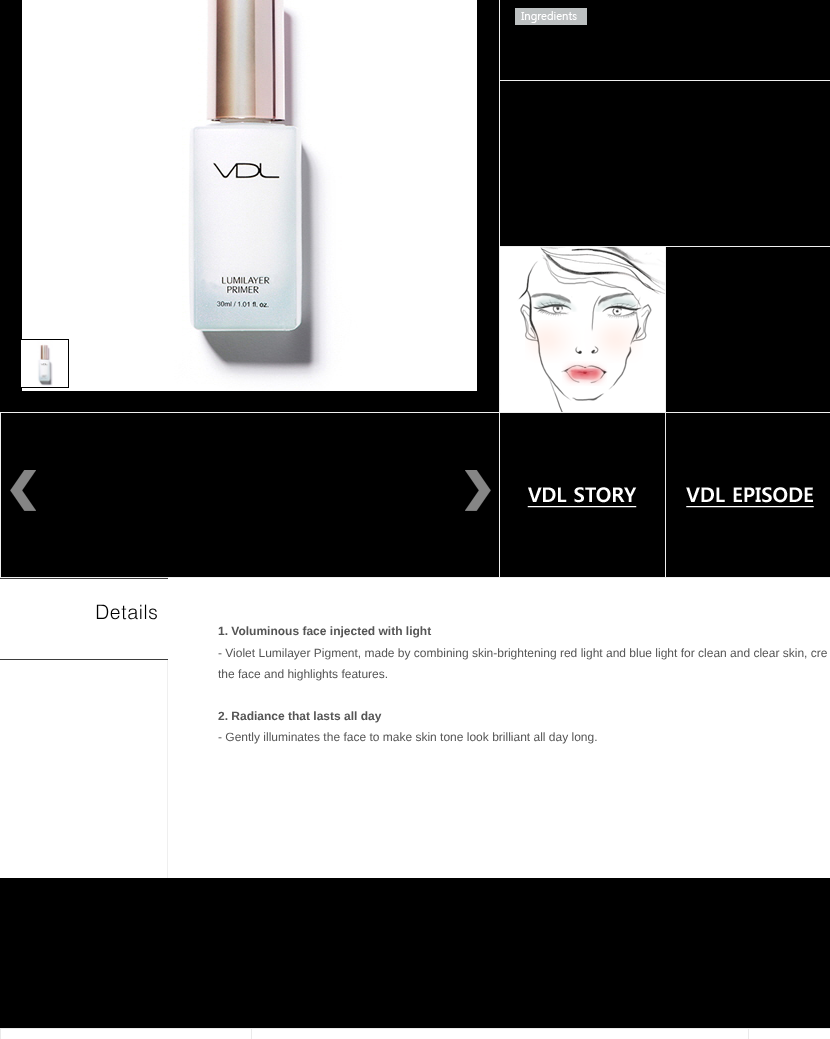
async function draw(canvas) {
	canvas.width = 830;
	canvas.height = 1039;
	const c = canvas.getContext('2d');
	c.miterLimit = 4;
	c.fontKerning = 'normal';
	async function loadImage(src) {
		const img = new Image();
		img.src = src;
		await img.decode();
		return img;
	}

	c.fillStyle = '#000';
	c.fillRect(0, 0, 830, 1039);
	c.fillStyle = '#efefef';
	c.fillRect(499, 0, 1, 413);
	c.fillRect(0, 412, 830, 1);
	c.drawImage(await loadImage('img1.png'), 22, 0, 455, 391);
	c.strokeStyle = '#000';
	c.strokeRect(20.5, 339.5, 48, 48);
	c.drawImage(await loadImage('img2.png'), 21, 340, 32, 47);
	c.fillRect(500, 80, 330, 1);
	c.drawImage(await loadImage('img3.png'), 515, 8, 72, 17);
	c.fillRect(500, 246, 330, 1);
	c.drawImage(await loadImage('img4.png'), 500, 247, 165, 165);
	c.fillRect(665, 247, 1, 165);
	c.drawImage(await loadImage('img5.png'), 535, 294, 102, 18);
	c.drawImage(await loadImage('img6.png'), 525, 320, 118, 43);
	c.drawImage(await loadImage('img7.png'), 562, 361, 45, 25);
	for (const [x, y, w, h, color] of [
		[0, 577, 830, 1, '#efefef'],
		[499, 412, 1, 165, '#efefef'],
		[0, 412, 1, 165, '#efefef'],
	]) {
		c.fillStyle = color;
		c.fillRect(x, y, w, h);
	}
	c.drawImage(await loadImage('img8.png'), 10, 470, 26, 41);
	c.drawImage(await loadImage('img9.png'), 465, 470, 26, 41);
	c.drawImage(await loadImage('img10.png'), 527, 413, 139, 164);
	c.drawImage(await loadImage('img11.png'), 686, 487, 128, 21);
	c.drawImage(await loadImage('img12.png'), 0, 578, 830, 300);
	for (const [x, y, w, h, color] of [
		[167, 579, 1, 80, '#fff'],
		[0, 578, 168, 1, '#3d3d3d'],
		[0, 659, 168, 1, '#3d3d3d'],
	]) {
		c.fillStyle = color;
		c.fillRect(x, y, w, h);
	}
	c.font = '20px Dotum';
	c.fillStyle = '#000';
	c.fillText('Details', 95, 619);
	c.font = 'bold 12px Liberation Sans';
	c.fillStyle = '#555';
	c.fillText('1. Voluminous face injected with light', 218, 635);
	c.font = '12px Liberation Sans';
	c.fillText('- Violet Lumilayer Pigment, made by combining skin-brightening red light and blue light for clean and clear skin, cre', 218, 657);
	c.fillText('the face and highlights features.', 218, 678);
	c.font = 'bold 12px Liberation Sans';
	c.fillText('2. Radiance that lasts all day', 218, 720);
	c.font = '12px Liberation Sans';
	c.fillText('- Gently illuminates the face to make skin tone look brilliant all day long.', 218, 741);
	for (const [x, y, w, h, color] of [
		[1, 1029, 829, 10, '#fff'],
		[0, 1028, 830, 1, '#eaeaea'],
		[0, 1028, 1, 11, '#eaeaea'],
	]) {
		c.fillStyle = color;
		c.fillRect(x, y, w, h);
	}
	c.strokeStyle = '#eaeaea';
	c.strokeRect(251.5, 1028.5, 497, 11);
}

draw(document.querySelector('canvas'));
